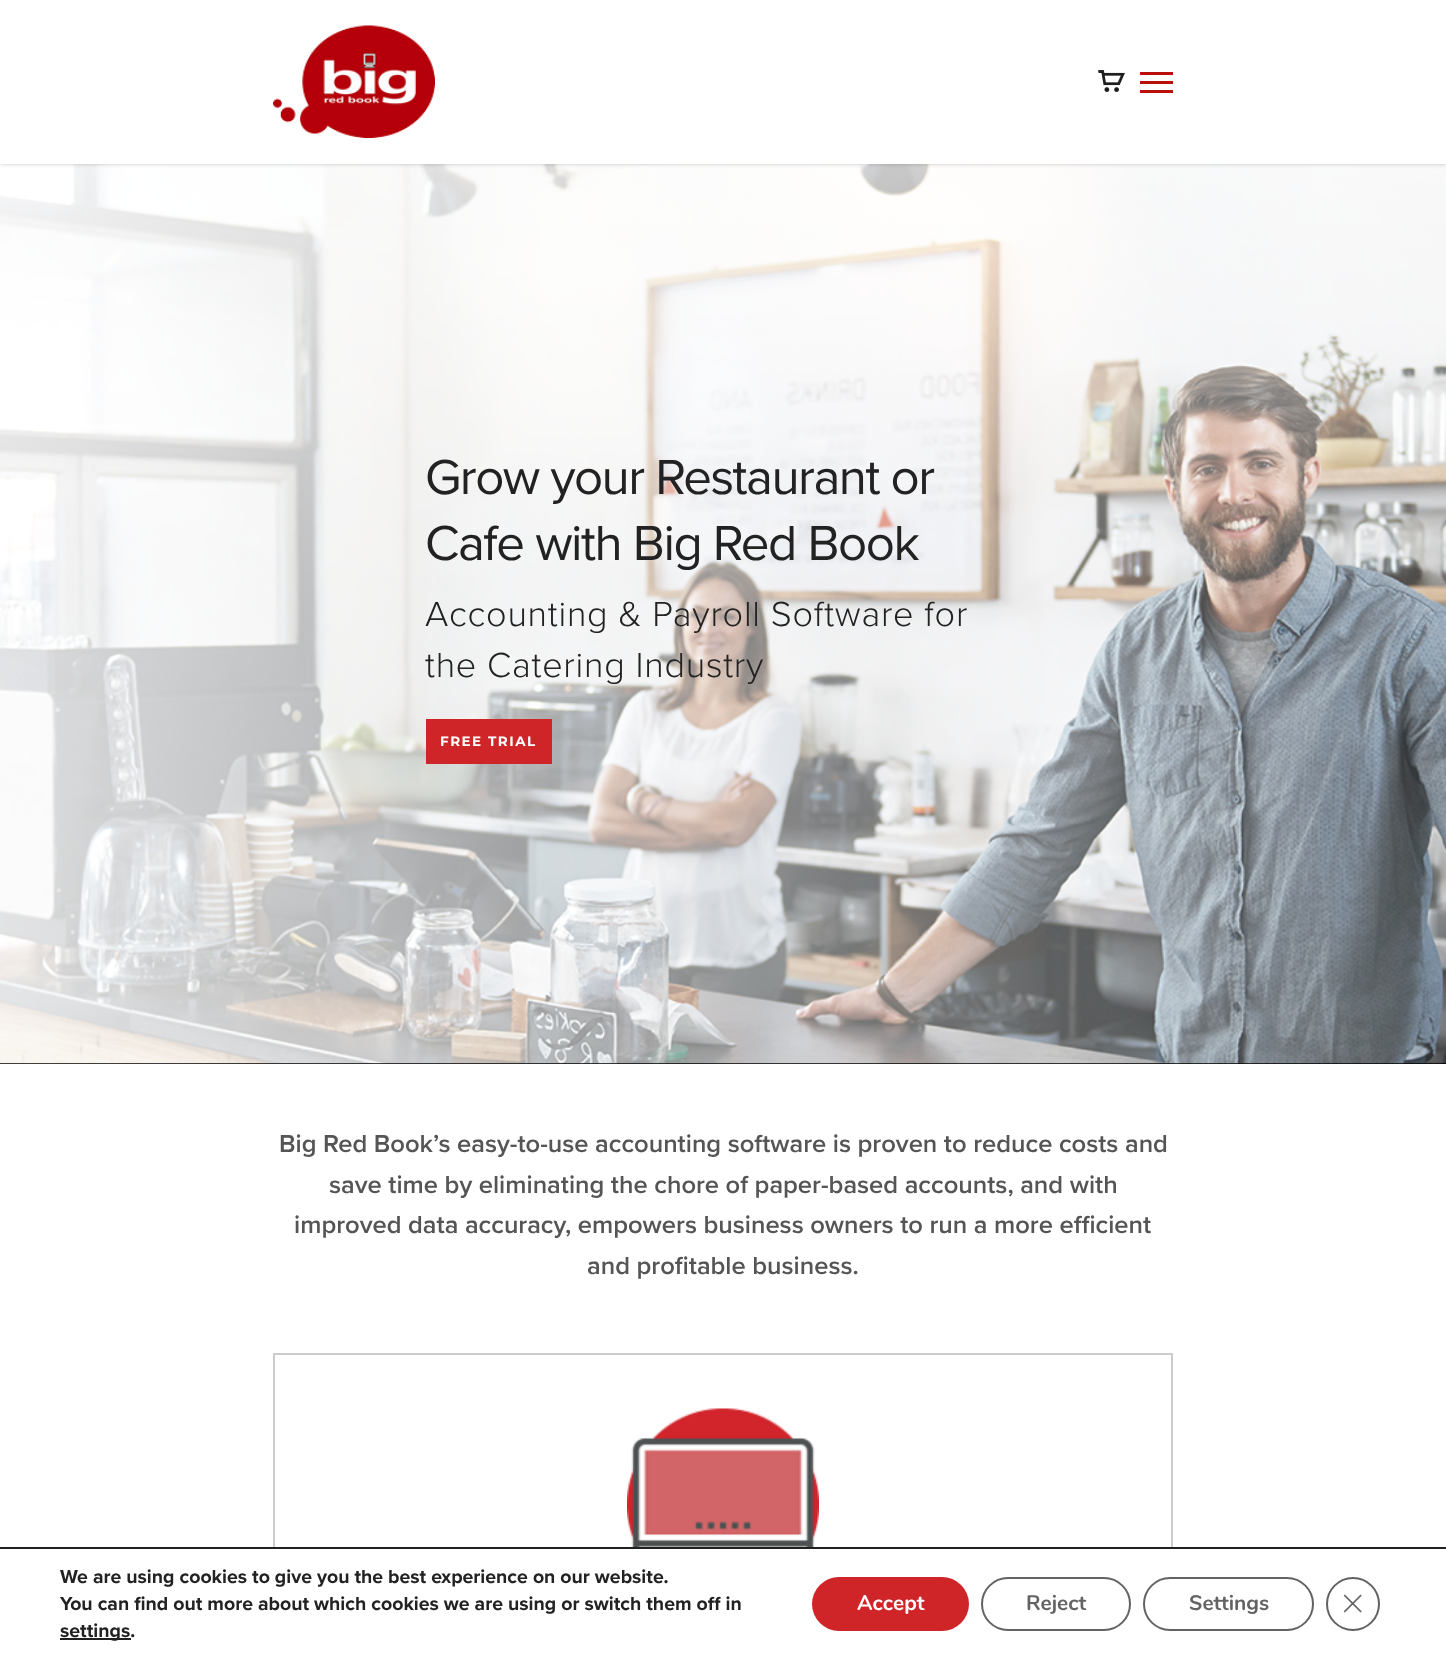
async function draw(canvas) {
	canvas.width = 1446;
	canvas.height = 1659;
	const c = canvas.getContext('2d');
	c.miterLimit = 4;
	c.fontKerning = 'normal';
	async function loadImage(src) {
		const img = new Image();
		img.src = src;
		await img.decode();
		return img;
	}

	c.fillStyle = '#fff';
	c.fillRect(0, 0, 1446, 1659);
	c.fillStyle = '#000';
	c.fillRect(0, 1063, 1446, 1);
	c.drawImage(await loadImage('img3.png'), 0, 164, 1446, 900);
	c.fillStyle = '#00000038';
	c.filter = 'blur(2px)';
	c.beginPath();
	c.rect(0, 0, 1446, 164);
	c.fill();
	c.filter = 'none';
	c.fillStyle = '#fff';
	c.fillRect(0, 0, 1446, 164);
	c.drawImage(await loadImage('img1.png'), 273, 25, 162, 113);
	c.drawImage(await loadImage('img2.png'), 1098, 70, 27, 22);
	for (const [x, y, w, h, color] of [
		[1140, 72, 33, 3, '#b91109'],
		[1140, 90, 33, 3, '#b91109'],
		[1140, 81, 33, 3, '#b91109'],
	]) {
		c.fillStyle = color;
		c.fillRect(x, y, w, h);
	}
	c.letterSpacing = '-1.5px';
	c.font = '51px Proxima Nova';
	c.fillStyle = '#222';
	c.fillText('Grow your Restaurant or', 425, 494);
	c.fillText('Cafe with Big Red Book', 425, 560);
	c.letterSpacing = '0.75px';
	c.font = '300 36px Proxima Nova';
	c.fillText('Accounting & Payroll Software for', 425, 626);
	c.fillText('the Catering Industry', 425, 677);
	c.fillStyle = '#cf2529';
	c.fillRect(426, 719, 126, 45);
	c.letterSpacing = '1.5px';
	c.font = '100 13.5px Montserrat';
	c.fillStyle = '#fff';
	c.fillText('FREE TRIAL', 440, 746);
	c.letterSpacing = '0px';
	c.font = '600 25.5px Proxima Nova';
	c.fillStyle = '#555';
	for (const [text, x, y] of [
		['Big Red Book’s easy-to-use accounting software is proven to reduce costs and', 279, 1152],
		['save time by eliminating the chore of paper-based accounts, and with', 329, 1193],
		['improved data accuracy, empowers business owners to run a more efficient', 294, 1233],
		['and profitable business.', 587, 1274],
	]) {
		c.fillText(text, x, y);
	}
	c.strokeStyle = '#ccc';
	c.lineWidth = 2;
	c.strokeRect(274, 1354, 898, 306);
	c.drawImage(await loadImage('img4.png'), 627, 1408, 192, 139);
	c.fillStyle = '#fff';
	c.fillRect(273, 1549, 900, 110);
	c.fillStyle = '#202020';
	c.fillRect(0, 1547, 1446, 2);
	c.font = 'bold 19.5px Proxima Nova';
	c.fillStyle = '#222';
	c.fillText('We are using cookies to give you the best experience on our website.', 60, 1583);
	c.fillText('You can find out more about which cookies we are using or switch them off in', 60, 1610);
	c.fillStyle = '#202020';
	c.fillRect(60, 1638, 71, 2);
	c.fillStyle = '#222';
	c.fillText('settings.', 60, 1637);
	c.fillStyle = '#cf2529';
	c.beginPath();
	c.roundRect(812, 1577, 157, 54, 27);
	c.fill();
	c.font = 'bold 21px Nunito';
	c.fillStyle = '#fff';
	c.fillText('Accept', 857, 1610);
	c.beginPath();
	c.roundRect(982, 1578, 148, 52, 26);
	c.strokeStyle = '#636363';
	c.stroke();
	c.fillStyle = '#636363';
	c.fillText('Reject', 1026, 1610);
	c.beginPath();
	c.roundRect(1144, 1578, 169, 52, 26);
	c.stroke();
	c.fillText('Settings', 1189, 1610);
	c.beginPath();
	c.arc(1353, 1604, 26, 0, 2 * Math.PI);
	c.strokeStyle = '#626262';
	c.stroke();
	c.drawImage(await loadImage('img5.png'), 1343, 1594, 19, 19);
}

draw(document.querySelector('canvas'));
